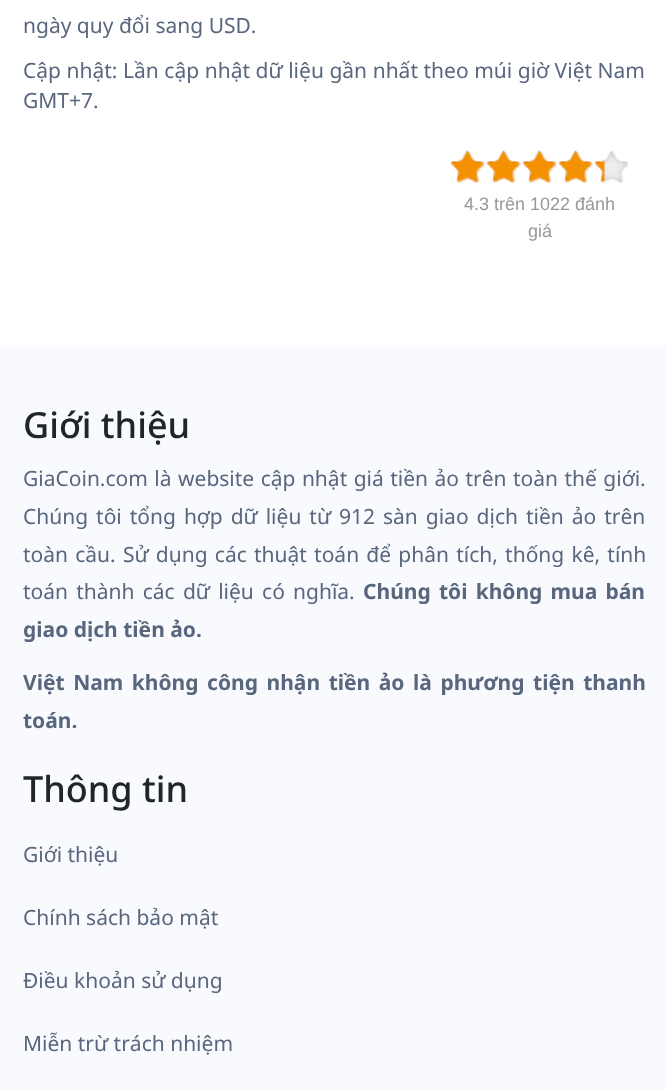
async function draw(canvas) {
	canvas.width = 667;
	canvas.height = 1090;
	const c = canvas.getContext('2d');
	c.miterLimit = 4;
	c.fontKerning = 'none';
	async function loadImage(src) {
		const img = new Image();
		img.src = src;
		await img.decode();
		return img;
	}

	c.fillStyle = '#fff';
	c.fillRect(0, 0, 667, 1090);
	c.font = '21px Noto Sans';
	c.fillStyle = '#58667e';
	c.fillText('ngày quy đổi sang USD.', 23, 33);
	c.wordSpacing = '0.1px';
	c.fillText('Cập nhật: Lần cập nhật dữ liệu gần nhất theo múi giờ Việt Nam', 23, 78);
	c.wordSpacing = '0px';
	c.fillText('GMT+7.', 23, 108);
	c.drawImage(await loadImage('img1.png'), 451, 150, 178, 33);
	c.drawImage(await loadImage('img2.png'), 451, 150, 154, 33);
	c.font = '18px Liberation Sans';
	c.fillStyle = '#999';
	c.fillText('4.3 trên 1022 đánh', 464, 210);
	c.fillText('giá', 528, 237);
	c.fillStyle = '#f8fafd';
	c.fillRect(0, 345, 667, 745);
	c.font = '500 36px Noto Sans';
	c.fillStyle = '#212529';
	c.fillText('Giới thiệu', 23, 438);
	c.wordSpacing = '1px';
	c.font = '21px Noto Sans';
	c.fillStyle = '#58667e';
	c.fillText('GiaCoin.com là website cập nhật giá tiền ảo trên toàn thế giới.', 23, 486);
	c.wordSpacing = '2.5px';
	c.fillText('Chúng tôi tổng hợp dữ liệu từ 912 sàn giao dịch tiền ảo trên', 23, 524);
	c.wordSpacing = '1.75px';
	c.fillText('toàn cầu. Sử dụng các thuật toán để phân tích, thống kê, tính', 23, 562);
	c.wordSpacing = '2.75px';
	c.fillText('toán thành các dữ liệu có nghĩa.', 23, 599);
	c.font = 'bold 21px Noto Sans';
	c.fillText('Chúng tôi không mua bán', 363, 599);
	c.wordSpacing = '0px';
	c.fillText('giao dịch tiền ảo.', 23, 637);
	c.wordSpacing = '3.1px';
	c.fillText('Việt Nam không công nhận tiền ảo là phương tiện thanh', 23, 690);
	c.wordSpacing = '0px';
	c.fillText('toán.', 23, 728);
	c.font = '500 36px Noto Sans';
	c.fillStyle = '#212529';
	c.fillText('Thông tin', 23, 802);
	c.font = '21px Noto Sans';
	c.fillStyle = '#58667e';
	for (const [text, x, y] of [
		['Giới thiệu', 23, 862],
		['Chính sách bảo mật', 23, 925],
		['Điều khoản sử dụng', 23, 988],
		['Miễn trừ trách nhiệm', 23, 1051],
	]) {
		c.fillText(text, x, y);
	}
}

draw(document.querySelector('canvas'));
